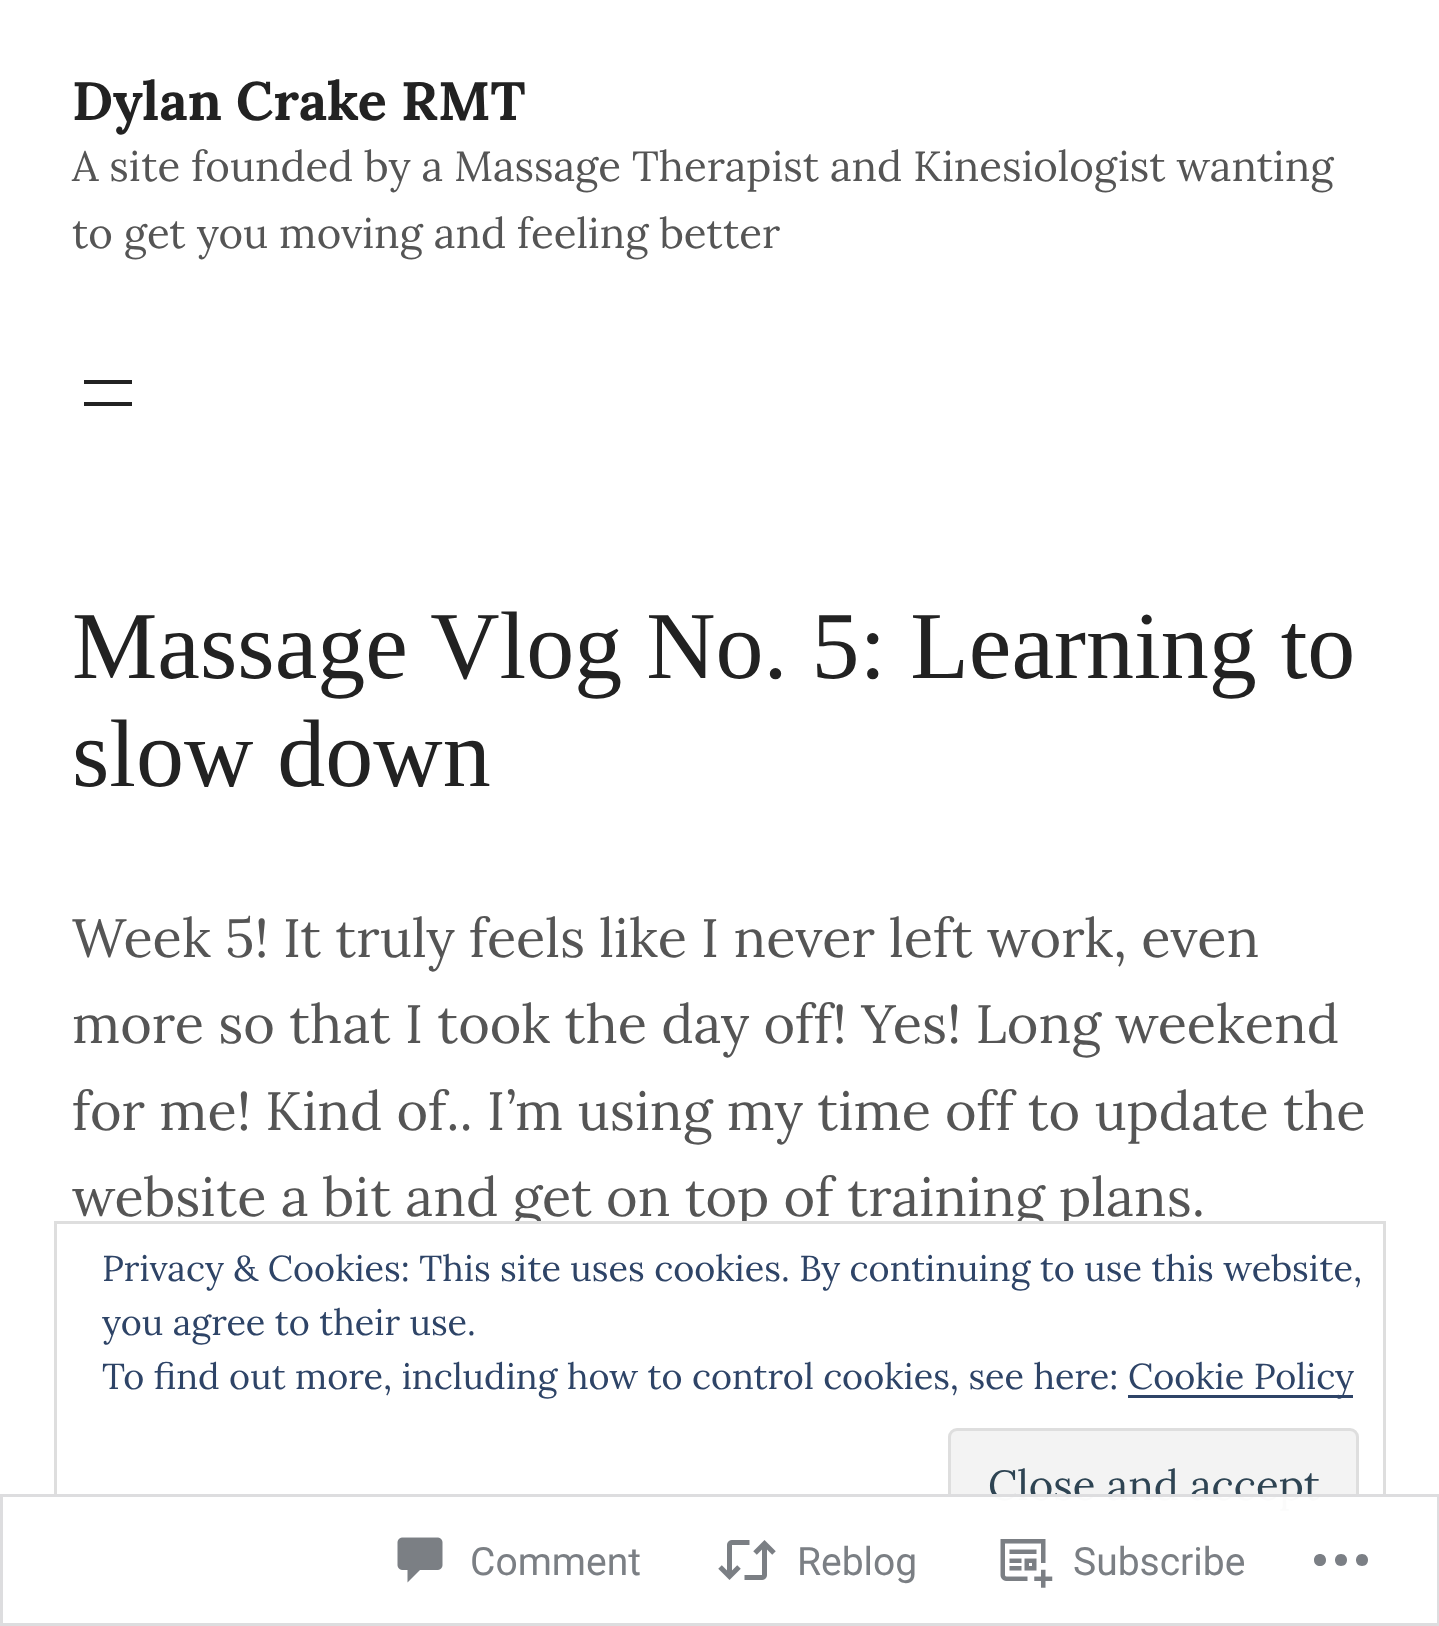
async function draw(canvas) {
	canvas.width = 1439;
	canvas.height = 1626;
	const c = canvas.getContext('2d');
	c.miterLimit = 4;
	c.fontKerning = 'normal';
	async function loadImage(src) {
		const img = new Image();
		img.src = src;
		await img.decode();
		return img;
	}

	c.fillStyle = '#fff';
	c.fillRect(0, 0, 1439, 1626);
	c.font = 'bold 54px Lora';
	c.fillStyle = '#222';
	c.fillText('Dylan Crake RMT', 72, 120);
	c.font = '42px Lora';
	c.fillStyle = '#555';
	c.fillText('A site founded by a Massage Therapist and Kinesiologist wanting', 72, 181);
	c.fillText('to get you moving and feeling better', 72, 248);
	c.fillStyle = '#222';
	c.fillRect(84, 380, 48, 4);
	c.fillRect(84, 402, 48, 4);
	c.font = '96px Liberation Serif';
	c.fillText('Massage Vlog No. 5: Learning to', 72, 678);
	c.fillText('slow down', 72, 786);
	c.font = '54px Lora';
	c.fillStyle = '#555';
	for (const [text, x, y] of [
		['Week 5! It truly feels like I never left work, even', 72, 957],
		['more so that I took the day off! Yes! Long weekend', 72, 1043],
		['for me! Kind of.. I’m using my time off to update the', 72, 1130],
		['website a bit and get on top of training plans.', 72, 1216],
	]) {
		c.fillText(text, x, y);
	}
	c.fillStyle = '#fff';
	c.fillRect(514, 1224, 558, 7);
	c.strokeStyle = '#dedede';
	c.lineWidth = 3;
	c.strokeRect(55.5, 1222.5, 1329, 348);
	c.font = '36px Lora';
	c.fillStyle = '#2e4467';
	for (const [text, x, y] of [
		['Privacy & Cookies: This site uses cookies. By continuing to use this website,', 102, 1281],
		['you agree to their use.', 102, 1335],
		['To find out more, including how to control cookies, see here:', 102, 1389],
	]) {
		c.fillText(text, x, y);
	}
	c.fillRect(1128, 1395, 225, 3);
	c.fillText('Cookie Policy', 1128, 1389);
	c.fillStyle = '#f3f3f3';
	c.beginPath();
	c.roundRect(949.5, 1429.5, 408, 114, 7.5);
	c.fill();
	c.stroke();
	c.font = '42px Lora';
	c.fillStyle = '#2e4453';
	c.fillText('Close and accept', 988, 1500);
	c.fillStyle = '#fffffffa';
	c.fillRect(54, 1494, 1332, 78);
	c.strokeStyle = '#dcdcdefa';
	c.strokeRect(1.5, 1495.5, 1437, 129);
	c.drawImage(await loadImage('img1.png'), 397, 1537, 46, 46);
	c.font = '39px Roboto';
	c.fillStyle = '#7b7f84';
	c.fillText('Comment', 470, 1575);
	c.drawImage(await loadImage('img2.png'), 718, 1540, 58, 40);
	c.fillText('Reblog', 797, 1575);
	c.drawImage(await loadImage('img3.png'), 1000, 1539, 53, 49);
	c.fillText('Subscribe', 1073, 1575);
	c.fillStyle = '#7b7f85';
	c.beginPath();
	c.moveTo(1326, 1560);
	c.bezierCurveTo(1326, 1568, 1314, 1568, 1314, 1560);
	c.bezierCurveTo(1314, 1552, 1326, 1552, 1326, 1560);
	c.closePath();
	c.moveTo(1362, 1554);
	c.bezierCurveTo(1354, 1554, 1354, 1566, 1362, 1566);
	c.bezierCurveTo(1370, 1566, 1370, 1554, 1362, 1554);
	c.closePath();
	c.moveTo(1341, 1554);
	c.bezierCurveTo(1333, 1554, 1333, 1566, 1341, 1566);
	c.bezierCurveTo(1349, 1566, 1349, 1554, 1341, 1554);
	c.closePath();
	c.fill();
}

draw(document.querySelector('canvas'));
